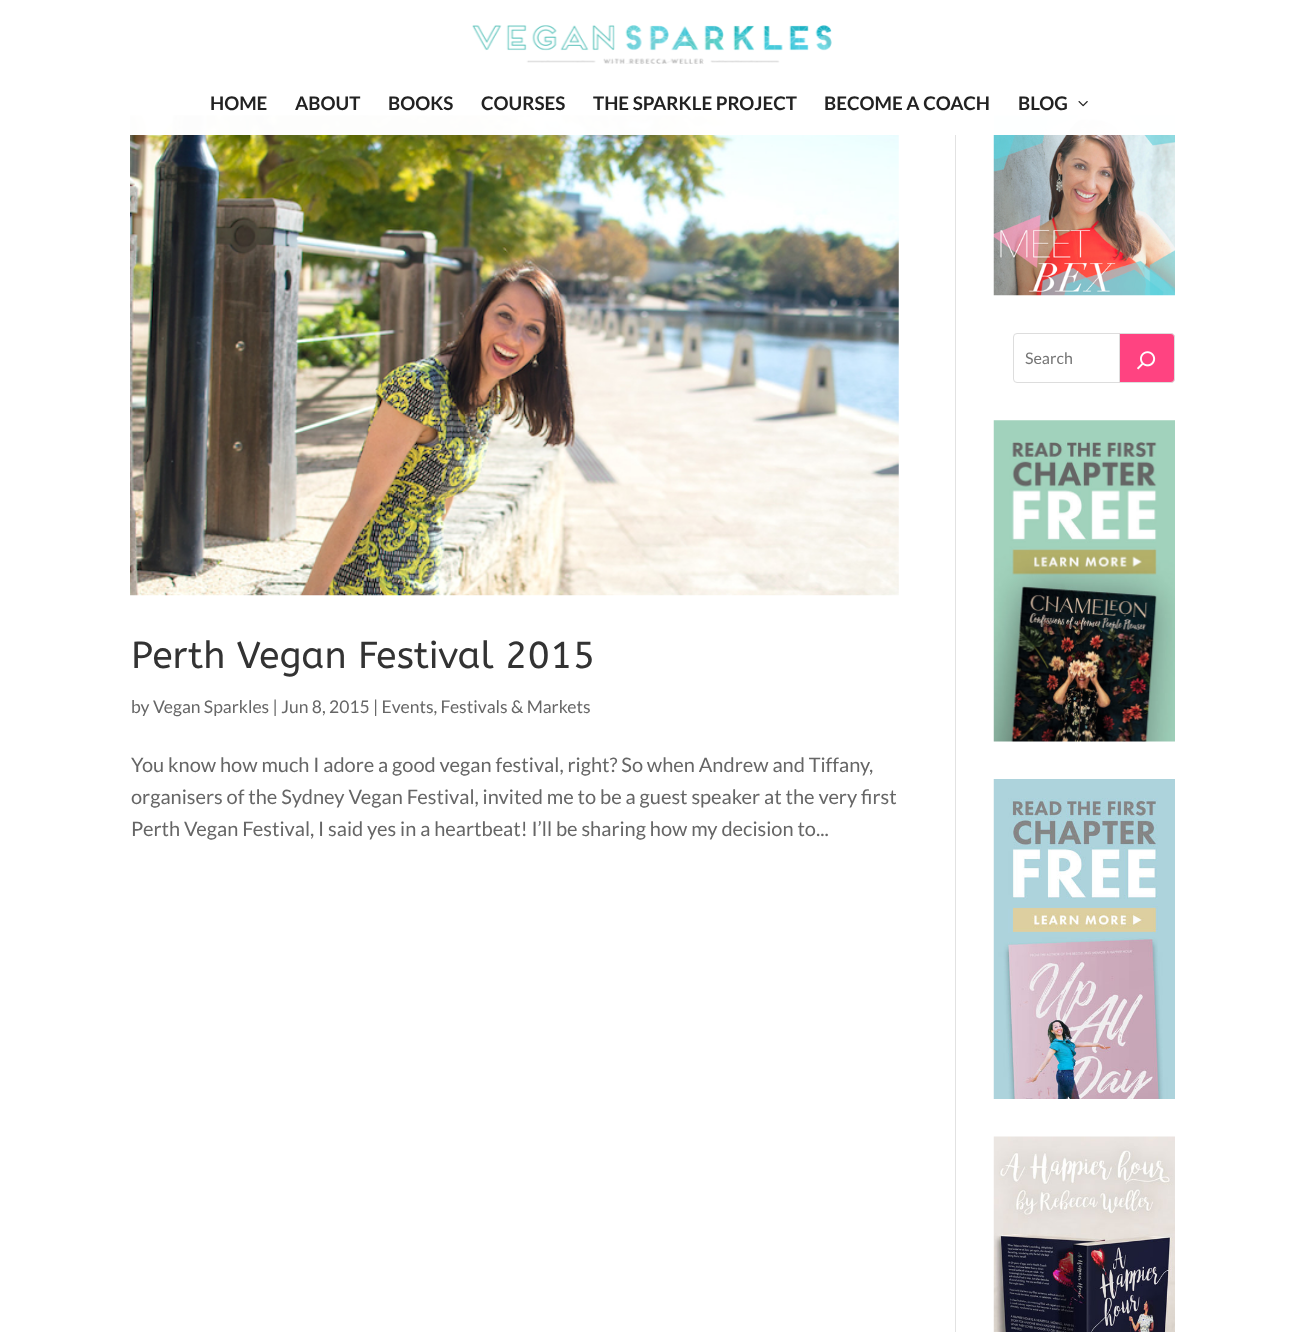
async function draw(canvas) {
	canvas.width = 1304;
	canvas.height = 1332;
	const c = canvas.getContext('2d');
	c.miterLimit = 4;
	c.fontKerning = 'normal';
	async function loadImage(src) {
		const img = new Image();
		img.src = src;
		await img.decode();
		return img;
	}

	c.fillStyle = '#f2f2f2';
	c.fillRect(0, 0, 1304, 1332);
	c.fillStyle = '#fff';
	c.fillRect(0, 43, 1304, 1289);
	c.fillStyle = '#e2e2e2';
	c.fillRect(955, 43, 1, 1289);
	c.drawImage(await loadImage('img3.png'), 993, 115, 182, 181);
	c.drawImage(await loadImage('img8.png'), 130, 115, 769, 481);
	c.fillStyle = '#fffffffc';
	c.fillRect(0, 0, 1304, 135);
	c.drawImage(await loadImage('img1.png'), 472, 25, 360, 39);
	c.font = 'bold 18.75px Lato';
	c.fillStyle = '#222';
	for (const [text, x, y] of [
		['HOME', 210, 110],
		['ABOUT', 295, 110],
		['BOOKS', 388, 110],
		['COURSES', 481, 110],
		['THE SPARKLE PROJECT', 593, 110],
		['BECOME A COACH', 824, 110],
		['BLOG', 1018, 110],
	]) {
		c.fillText(text, x, y);
	}
	c.drawImage(await loadImage('img2.png'), 1078, 101, 10, 6);
	c.beginPath();
	c.roundRect(1013.5, 333.5, 142, 49, 3.5);
	c.strokeStyle = '#ddd';
	c.stroke();
	c.font = '16px Lato';
	c.fillStyle = '#757575';
	c.fillText('Search', 1025, 364);
	c.fillStyle = '#ff4381';
	c.beginPath();
	c.roundRect(1119.5, 333.5, 55, 49, [0, 3.5, 3.5, 0]);
	c.fill();
	c.stroke();
	c.drawImage(await loadImage('img4.png'), 1137, 351, 19, 19);
	c.drawImage(await loadImage('img5.png'), 993, 420, 182, 322);
	c.drawImage(await loadImage('img6.png'), 993, 779, 182, 320);
	c.drawImage(await loadImage('img7.png'), 993, 1136, 182, 196);
	c.font = '37.5px ABeeZee';
	c.fillStyle = '#333';
	c.fillText('Perth Vegan Festival 2015', 131, 668);
	c.font = '17.5px Lato';
	c.fillStyle = '#666';
	c.fillText('by Vegan Sparkles | Jun 8, 2015 | Events, Festivals & Markets', 131, 713);
	c.font = '20px Lato';
	for (const [text, x, y] of [
		['You know how much I adore a good vegan festival, right? So when Andrew and Tiffany,', 131, 772],
		['organisers of the Sydney Vegan Festival, invited me to be a guest speaker at the very first', 131, 804],
		['Perth Vegan Festival, I said yes in a heartbeat! I’ll be sharing how my decision to...', 131, 836],
	]) {
		c.fillText(text, x, y);
	}
}

draw(document.querySelector('canvas'));
